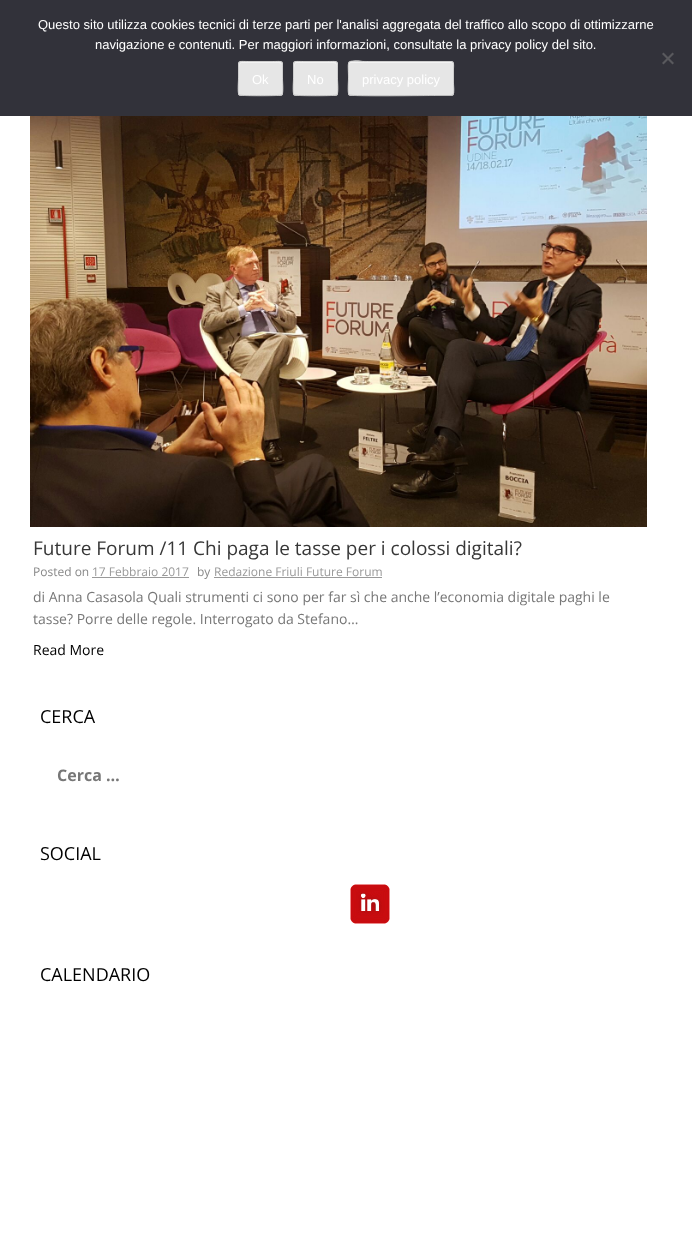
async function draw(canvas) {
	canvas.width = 692;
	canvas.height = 1254;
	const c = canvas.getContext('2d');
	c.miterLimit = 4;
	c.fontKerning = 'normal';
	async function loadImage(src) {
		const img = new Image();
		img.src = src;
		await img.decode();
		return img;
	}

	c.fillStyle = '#fff';
	c.fillRect(0, 0, 692, 1254);
	c.fillStyle = '#32323a';
	c.fillRect(0, 0, 692, 116);
	c.font = '13px Liberation Sans';
	c.fillStyle = '#fff';
	c.fillText('Questo sito utilizza cookies tecnici di terze parti per l\'analisi aggregata del traffico allo scopo di ottimizzarne', 38, 29);
	c.fillText('navigazione e contenuti. Per maggiori informazioni, consultate la privacy policy del sito.', 95, 49);
	c.fillStyle = '#59595d';
	c.beginPath();
	c.moveTo(672.5, 52.5);
	c.lineTo(674, 54);
	c.lineTo(663.5, 64.5);
	c.lineTo(662, 63);
	c.closePath();
	c.fill();
	c.beginPath();
	c.moveTo(662, 54);
	c.lineTo(663.5, 52.5);
	c.lineTo(674, 63);
	c.lineTo(672.5, 64.5);
	c.closePath();
	c.fill();
	c.fillStyle = '#e6e6e6';
	c.beginPath();
	c.roundRect(238, 61, 45, 35, 3);
	c.fill();
	c.fillStyle = '#f3f3f3';
	c.beginPath();
	c.moveTo(241, 63);
	c.lineTo(277, 63);
	c.bezierCurveTo(283, 63, 282, 65, 282, 70);
	c.bezierCurveTo(282, 61, 283, 62, 274, 62);
	c.lineTo(248, 62);
	c.bezierCurveTo(239, 62, 239, 61, 239, 69);
	c.lineTo(239, 93);
	c.lineTo(239, 68);
	c.lineTo(240, 64);
	c.closePath();
	c.fill();
	c.beginPath();
	c.moveTo(282, 95);
	c.bezierCurveTo(280.5, 96, 240.5, 96, 239, 95);
	c.strokeStyle = '#bbb';
	c.stroke();
	c.beginPath();
	c.moveTo(239, 95);
	c.bezierCurveTo(237.5, 93, 238.5, 81.5, 238.5, 78.5);
	c.lineTo(238.5, 69);
	c.bezierCurveTo(238.5, 60, 238.5, 61.5, 247.5, 61.5);
	c.lineTo(273.5, 61.5);
	c.bezierCurveTo(282.5, 61.5, 282.5, 60, 282.5, 69);
	c.lineTo(282.5, 78.5);
	c.bezierCurveTo(282.5, 81.5, 283.5, 93, 282, 95);
	c.strokeStyle = '#ccc';
	c.stroke();
	c.fillStyle = '#fff';
	c.fillText('Ok', 252, 84);
	c.fillStyle = '#e6e6e6';
	c.beginPath();
	c.roundRect(293, 61, 45, 35, 3);
	c.fill();
	c.fillStyle = '#f3f3f3';
	c.beginPath();
	c.moveTo(296, 63);
	c.lineTo(331, 63);
	c.bezierCurveTo(337, 63, 337, 64, 337, 70);
	c.bezierCurveTo(337, 61, 338, 62, 328, 62);
	c.lineTo(302, 62);
	c.bezierCurveTo(294, 62, 294, 61, 294, 69);
	c.lineTo(294, 93);
	c.lineTo(294, 68);
	c.lineTo(295, 64);
	c.closePath();
	c.fill();
	c.beginPath();
	c.moveTo(337, 95);
	c.bezierCurveTo(335.5, 96, 295.5, 96, 294, 95);
	c.strokeStyle = '#bbb';
	c.stroke();
	c.beginPath();
	c.moveTo(294, 95);
	c.bezierCurveTo(292.5, 93, 293.5, 81.5, 293.5, 78.5);
	c.lineTo(293.5, 69);
	c.bezierCurveTo(293.5, 60, 293.5, 61.5, 302.5, 61.5);
	c.lineTo(328.5, 61.5);
	c.bezierCurveTo(337.5, 61.5, 337.5, 60, 337.5, 69);
	c.lineTo(337.5, 78.5);
	c.bezierCurveTo(337.5, 81.5, 338.5, 93, 337, 95);
	c.strokeStyle = '#ccc';
	c.stroke();
	c.fillStyle = '#fff';
	c.fillText('No', 307, 84);
	c.fillStyle = '#e6e6e6';
	c.beginPath();
	c.roundRect(348, 61, 106, 35, 3);
	c.fill();
	c.fillStyle = '#f3f3f3';
	c.beginPath();
	c.moveTo(351, 63);
	c.lineTo(451, 63);
	c.bezierCurveTo(452, 63, 453, 64, 453, 65);
	c.bezierCurveTo(453, 64, 453, 62, 451, 62);
	c.lineTo(368, 62);
	c.bezierCurveTo(367, 62, 349, 57, 349, 65);
	c.bezierCurveTo(349, 64, 350, 63, 351, 63);
	c.closePath();
	c.fill();
	c.beginPath();
	c.moveTo(453, 95);
	c.lineTo(451, 95.5);
	c.lineTo(434.5, 95.5);
	c.bezierCurveTo(425.5, 95.5, 351.5, 96.5, 349.5, 95);
	c.lineTo(349, 95);
	c.strokeStyle = '#bbb';
	c.stroke();
	c.beginPath();
	c.moveTo(349, 95);
	c.bezierCurveTo(347.5, 93, 348.5, 81.5, 348.5, 78.5);
	c.bezierCurveTo(348.5, 57, 344.5, 61.5, 367.5, 61.5);
	c.lineTo(451, 61.5);
	c.bezierCurveTo(454.5, 61.5, 453.5, 67, 453.5, 69);
	c.lineTo(453.5, 83.5);
	c.bezierCurveTo(453.5, 85.5, 454.5, 93, 453, 95);
	c.strokeStyle = '#ccc';
	c.stroke();
	c.fillStyle = '#fff';
	c.fillText('privacy policy', 362, 84);
	c.drawImage(await loadImage('img1.png'), 30, 116, 617, 411);
	c.font = '19px Open Sans';
	c.fillStyle = '#373737';
	c.fillText('Future Forum /11 Chi paga le tasse per i colossi digitali?', 33, 555);
	c.font = '12px Open Sans';
	c.fillStyle = '#888';
	c.fillText('Posted on', 33, 576);
	c.fillStyle = '#999';
	c.fillText('17 Febbraio 2017', 92, 576);
	c.fillRect(92, 577, 97, 1);
	c.fillStyle = '#888';
	c.fillText('by', 197, 576);
	c.fillStyle = '#999';
	c.fillText('Redazione Friuli Future Forum', 214, 576);
	c.fillRect(214, 577, 168, 1);
	c.font = '14px Open Sans';
	c.fillStyle = '#777';
	c.fillText('di Anna Casasola Quali strumenti ci sono per far sì che anche l’economia digitale paghi le', 33, 602);
	c.fillText('tasse? Porre delle regole. Interrogato da Stefano…', 33, 624);
	c.fillStyle = '#000';
	c.fillText('Read More', 33, 655);
	c.font = '18px Open Sans';
	c.fillText('CERCA', 40, 723);
	c.font = 'bold 16px Open Sans';
	c.fillStyle = '#777';
	c.fillText('Cerca …', 57, 781);
	c.font = '18px Open Sans';
	c.fillStyle = '#000';
	c.fillText('SOCIAL', 40, 860);
	c.drawImage(await loadImage('img2.png'), 350, 884, 40, 40);
	c.fillText('CALENDARIO', 40, 981);
}

draw(document.querySelector('canvas'));
